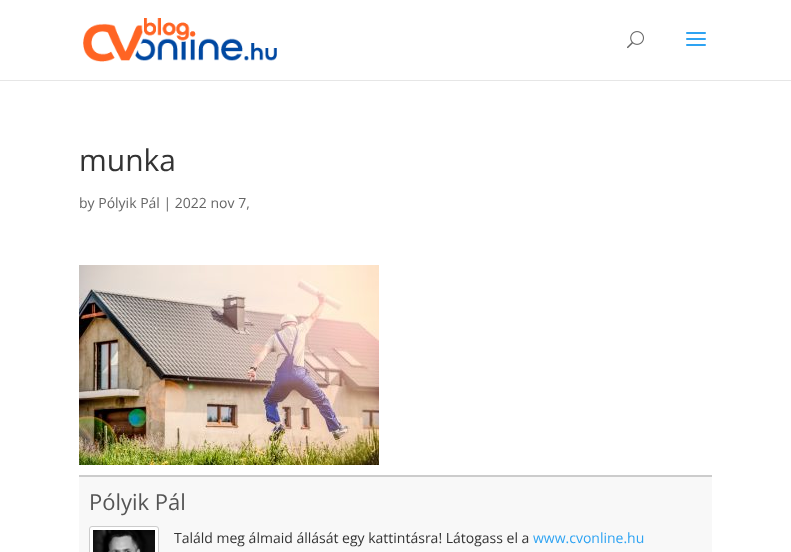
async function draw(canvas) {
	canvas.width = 791;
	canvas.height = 552;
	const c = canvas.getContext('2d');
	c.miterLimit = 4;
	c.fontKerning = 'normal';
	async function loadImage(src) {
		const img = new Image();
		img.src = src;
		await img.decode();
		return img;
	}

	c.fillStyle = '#fff';
	c.fillRect(0, 0, 791, 552);
	c.fillStyle = '#e6e6e6';
	c.fillRect(0, 80, 791, 1);
	c.drawImage(await loadImage('img1.png'), 83, 18, 194, 44);
	c.drawImage(await loadImage('img2.png'), 627, 31, 17, 18);
	c.drawImage(await loadImage('img3.png'), 686, 32, 20, 14);
	c.font = '30px Open Sans';
	c.fillStyle = '#333';
	c.fillText('munka', 79, 171);
	c.font = '14px Open Sans';
	c.fillStyle = '#666';
	c.fillText('by Pólyik Pál | 2022 nov 7,', 79, 208);
	c.drawImage(await loadImage('img4.png'), 79, 265, 300, 200);
	c.fillStyle = '#f8f8f8';
	c.fillRect(79, 477, 633, 75);
	c.fillStyle = '#ccc';
	c.fillRect(79, 475, 633, 2);
	c.font = '22px Open Sans';
	c.fillStyle = '#555';
	c.fillText('Pólyik Pál', 89, 510);
	c.fillStyle = '#fff';
	c.beginPath();
	c.roundRect(89.5, 526.5, 69, 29, 2.5);
	c.fill();
	c.strokeStyle = '#ccc';
	c.stroke();
	c.drawImage(await loadImage('img5.png'), 93, 530, 62, 22);
	c.font = '14px Open Sans';
	c.fillStyle = '#333';
	c.fillText('Találd meg álmaid állását egy kattintásra! Látogass el a', 174, 543);
	c.fillStyle = '#2ea3f2';
	c.fillText('www.cvonline.hu', 533, 543);
}

draw(document.querySelector('canvas'));
